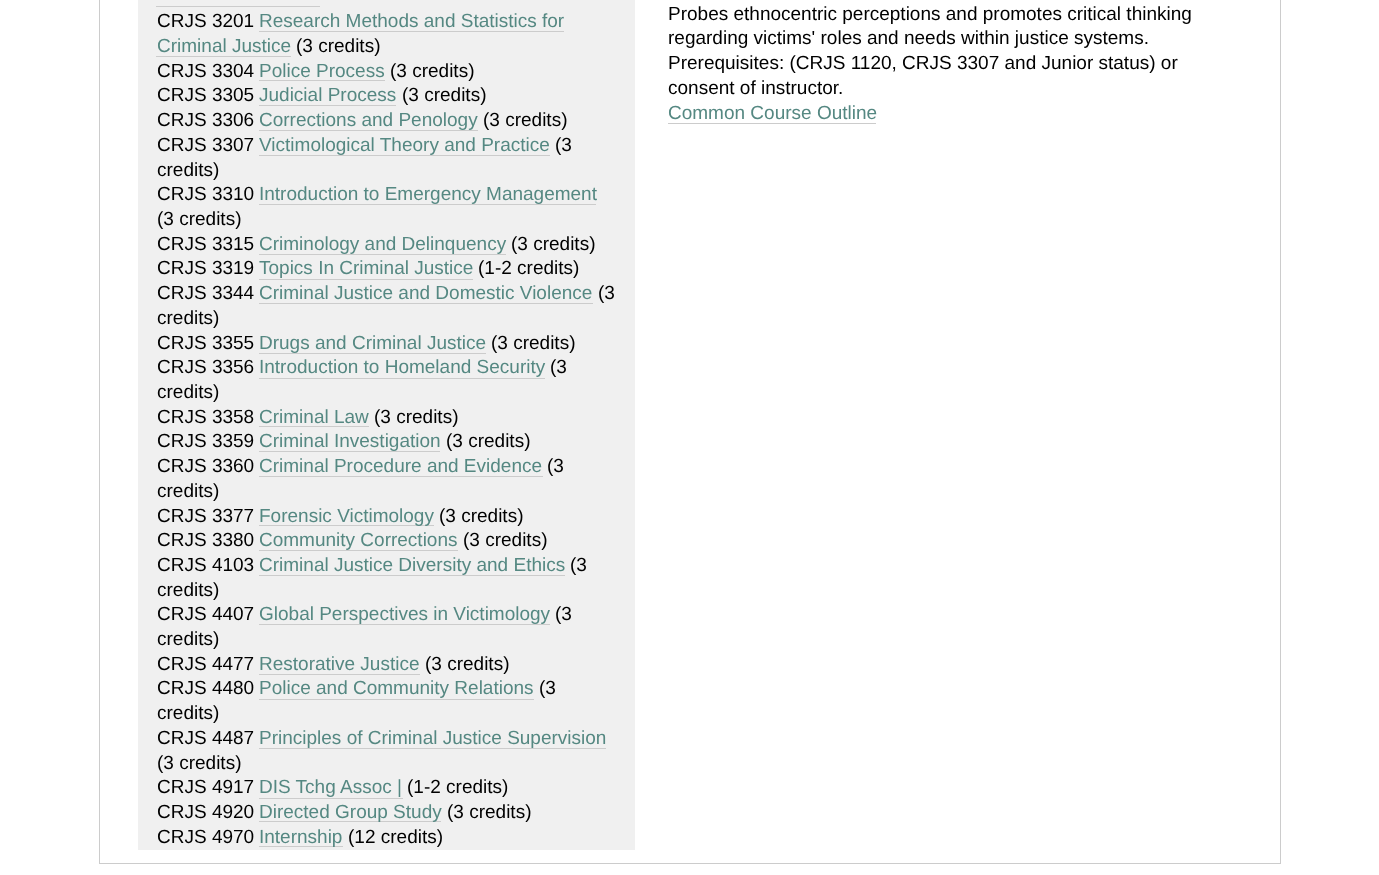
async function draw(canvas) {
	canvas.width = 1379;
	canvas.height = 875;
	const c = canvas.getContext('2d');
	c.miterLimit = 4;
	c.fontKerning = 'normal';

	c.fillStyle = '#fff';
	c.fillRect(0, 0, 1379, 875);
	c.strokeStyle = '#ccc';
	c.strokeRect(99.5, -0.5, 1181, 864);
	c.fillStyle = '#f0f0f0';
	c.fillRect(138, 0, 497, 850);
	c.fillStyle = '#ccc';
	c.fillRect(156, 6, 164, 1);
	c.font = '19px Liberation Sans';
	c.fillStyle = '#000';
	c.fillText('CRJS 3201', 157, 27);
	c.fillStyle = '#558882';
	c.fillText('Research Methods and Statistics for', 259, 27);
	c.fillStyle = '#ccc';
	c.fillRect(259, 31, 305, 1);
	c.fillStyle = '#558882';
	c.fillText('Criminal Justice', 157, 52);
	c.fillStyle = '#ccc';
	c.fillRect(156, 56, 135, 1);
	c.fillStyle = '#000';
	c.fillText('(3 credits)', 296, 52);
	c.fillText('CRJS 3304', 157, 77);
	c.fillStyle = '#558882';
	c.fillText('Police Process', 259, 77);
	c.fillStyle = '#ccc';
	c.fillRect(259, 80, 126, 1);
	c.fillStyle = '#000';
	c.fillText('(3 credits)', 390, 77);
	c.fillText('CRJS 3305', 157, 101);
	c.fillStyle = '#558882';
	c.fillText('Judicial Process', 259, 101);
	c.fillStyle = '#ccc';
	c.fillRect(259, 105, 137, 1);
	c.fillStyle = '#000';
	c.fillText('(3 credits)', 402, 101);
	c.fillText('CRJS 3306', 157, 126);
	c.fillStyle = '#558882';
	c.fillText('Corrections and Penology', 259, 126);
	c.fillStyle = '#ccc';
	c.fillRect(259, 130, 219, 1);
	c.fillStyle = '#000';
	c.fillText('(3 credits)', 483, 126);
	c.fillText('CRJS 3307', 157, 151);
	c.fillStyle = '#558882';
	c.fillText('Victimological Theory and Practice', 259, 151);
	c.fillStyle = '#ccc';
	c.fillRect(259, 155, 291, 1);
	c.fillStyle = '#000';
	for (const [text, x, y] of [
		['(3', 555, 151],
		['credits)', 157, 176],
		['CRJS 3310', 157, 200],
	]) {
		c.fillText(text, x, y);
	}
	c.fillStyle = '#558882';
	c.fillText('Introduction to Emergency Management', 259, 200);
	c.fillStyle = '#ccc';
	c.fillRect(259, 204, 337, 1);
	c.fillStyle = '#000';
	c.fillText('(3 credits)', 157, 225);
	c.fillText('CRJS 3315', 157, 250);
	c.fillStyle = '#558882';
	c.fillText('Criminology and Delinquency', 259, 250);
	c.fillStyle = '#ccc';
	c.fillRect(259, 254, 247, 1);
	c.fillStyle = '#000';
	c.fillText('(3 credits)', 511, 250);
	c.fillText('CRJS 3319', 157, 274);
	c.fillStyle = '#558882';
	c.fillText('Topics In Criminal Justice', 259, 274);
	c.fillStyle = '#ccc';
	c.fillRect(259, 279, 214, 1);
	c.fillStyle = '#000';
	c.fillText('(1-2 credits)', 478, 274);
	c.fillText('CRJS 3344', 157, 299);
	c.fillStyle = '#558882';
	c.fillText('Criminal Justice and Domestic Violence', 259, 299);
	c.fillStyle = '#ccc';
	c.fillRect(259, 303, 334, 1);
	c.fillStyle = '#000';
	for (const [text, x, y] of [
		['(3', 598, 299],
		['credits)', 157, 324],
		['CRJS 3355', 157, 349],
	]) {
		c.fillText(text, x, y);
	}
	c.fillStyle = '#558882';
	c.fillText('Drugs and Criminal Justice', 259, 349);
	c.fillStyle = '#ccc';
	c.fillRect(259, 353, 227, 1);
	c.fillStyle = '#000';
	c.fillText('(3 credits)', 491, 349);
	c.fillText('CRJS 3356', 157, 373);
	c.fillStyle = '#558882';
	c.fillText('Introduction to Homeland Security', 259, 373);
	c.fillStyle = '#ccc';
	c.fillRect(259, 378, 286, 1);
	c.fillStyle = '#000';
	for (const [text, x, y] of [
		['(3', 550, 373],
		['credits)', 157, 398],
		['CRJS 3358', 157, 423],
	]) {
		c.fillText(text, x, y);
	}
	c.fillStyle = '#558882';
	c.fillText('Criminal Law', 259, 423);
	c.fillStyle = '#ccc';
	c.fillRect(259, 426, 110, 1);
	c.fillStyle = '#000';
	c.fillText('(3 credits)', 374, 423);
	c.fillText('CRJS 3359', 157, 447);
	c.fillStyle = '#558882';
	c.fillText('Criminal Investigation', 259, 447);
	c.fillStyle = '#ccc';
	c.fillRect(259, 451, 181, 1);
	c.fillStyle = '#000';
	c.fillText('(3 credits)', 446, 447);
	c.fillText('CRJS 3360', 157, 472);
	c.fillStyle = '#558882';
	c.fillText('Criminal Procedure and Evidence', 259, 472);
	c.fillStyle = '#ccc';
	c.fillRect(259, 476, 284, 1);
	c.fillStyle = '#000';
	for (const [text, x, y] of [
		['(3', 547, 472],
		['credits)', 157, 497],
		['CRJS 3377', 157, 522],
	]) {
		c.fillText(text, x, y);
	}
	c.fillStyle = '#ccc';
	c.fillRect(259, 525, 175, 1);
	c.fillStyle = '#558882';
	c.fillText('Forensic Victimology', 259, 522);
	c.fillStyle = '#000';
	c.fillText('(3 credits)', 439, 522);
	c.fillText('CRJS 3380', 157, 546);
	c.fillStyle = '#558882';
	c.fillText('Community Corrections', 259, 546);
	c.fillStyle = '#ccc';
	c.fillRect(259, 550, 199, 1);
	c.fillStyle = '#000';
	c.fillText('(3 credits)', 463, 546);
	c.fillText('CRJS 4103', 157, 571);
	c.fillStyle = '#558882';
	c.fillText('Criminal Justice Diversity and Ethics', 259, 571);
	c.fillStyle = '#ccc';
	c.fillRect(259, 575, 306, 1);
	c.fillStyle = '#000';
	for (const [text, x, y] of [
		['(3', 570, 571],
		['credits)', 157, 596],
		['CRJS 4407', 157, 620],
	]) {
		c.fillText(text, x, y);
	}
	c.fillStyle = '#558882';
	c.fillText('Global Perspectives in Victimology', 259, 620);
	c.fillStyle = '#ccc';
	c.fillRect(259, 624, 291, 1);
	c.fillStyle = '#000';
	for (const [text, x, y] of [
		['(3', 555, 620],
		['credits)', 157, 645],
		['CRJS 4477', 157, 670],
	]) {
		c.fillText(text, x, y);
	}
	c.fillStyle = '#558882';
	c.fillText('Restorative Justice', 259, 670);
	c.fillStyle = '#ccc';
	c.fillRect(259, 674, 161, 1);
	c.fillStyle = '#000';
	c.fillText('(3 credits)', 425, 670);
	c.fillText('CRJS 4480', 157, 694);
	c.fillStyle = '#558882';
	c.fillText('Police and Community Relations', 259, 694);
	c.fillStyle = '#ccc';
	c.fillRect(259, 699, 275, 1);
	c.fillStyle = '#000';
	for (const [text, x, y] of [
		['(3', 539, 694],
		['credits)', 157, 719],
		['CRJS 4487', 157, 744],
	]) {
		c.fillText(text, x, y);
	}
	c.fillStyle = '#558882';
	c.fillText('Principles of Criminal Justice Supervision', 259, 744);
	c.fillStyle = '#ccc';
	c.fillRect(259, 748, 347, 1);
	c.fillStyle = '#000';
	c.fillText('(3 credits)', 157, 769);
	c.fillText('CRJS 4917', 157, 793);
	c.fillStyle = '#558882';
	c.fillText('DIS Tchg Assoc |', 259, 793);
	c.fillStyle = '#ccc';
	c.fillRect(259, 798, 144, 1);
	c.fillStyle = '#000';
	c.fillText('(1-2 credits)', 407, 793);
	c.fillText('CRJS 4920', 157, 818);
	c.fillStyle = '#ccc';
	c.fillRect(259, 821, 182, 1);
	c.fillStyle = '#558882';
	c.fillText('Directed Group Study', 259, 818);
	c.fillStyle = '#000';
	c.fillText('(3 credits)', 447, 818);
	c.fillText('CRJS 4970', 157, 843);
	c.fillStyle = '#ccc';
	c.fillRect(259, 846, 84, 1);
	c.fillStyle = '#558882';
	c.fillText('Internship', 259, 843);
	c.fillStyle = '#000';
	for (const [text, x, y] of [
		['(12 credits)', 348, 843],
		['Probes ethnocentric perceptions and promotes critical thinking', 668, 20],
		['regarding victims\' roles and needs within justice systems.', 668, 44],
		['Prerequisites: (CRJS 1120, CRJS 3307 and Junior status) or', 668, 69],
		['consent of instructor.', 668, 94],
	]) {
		c.fillText(text, x, y);
	}
	c.fillStyle = '#558882';
	c.fillText('Common Course Outline', 668, 119);
	c.fillStyle = '#ccc';
	c.fillRect(668, 123, 208, 1);
}

draw(document.querySelector('canvas'));
